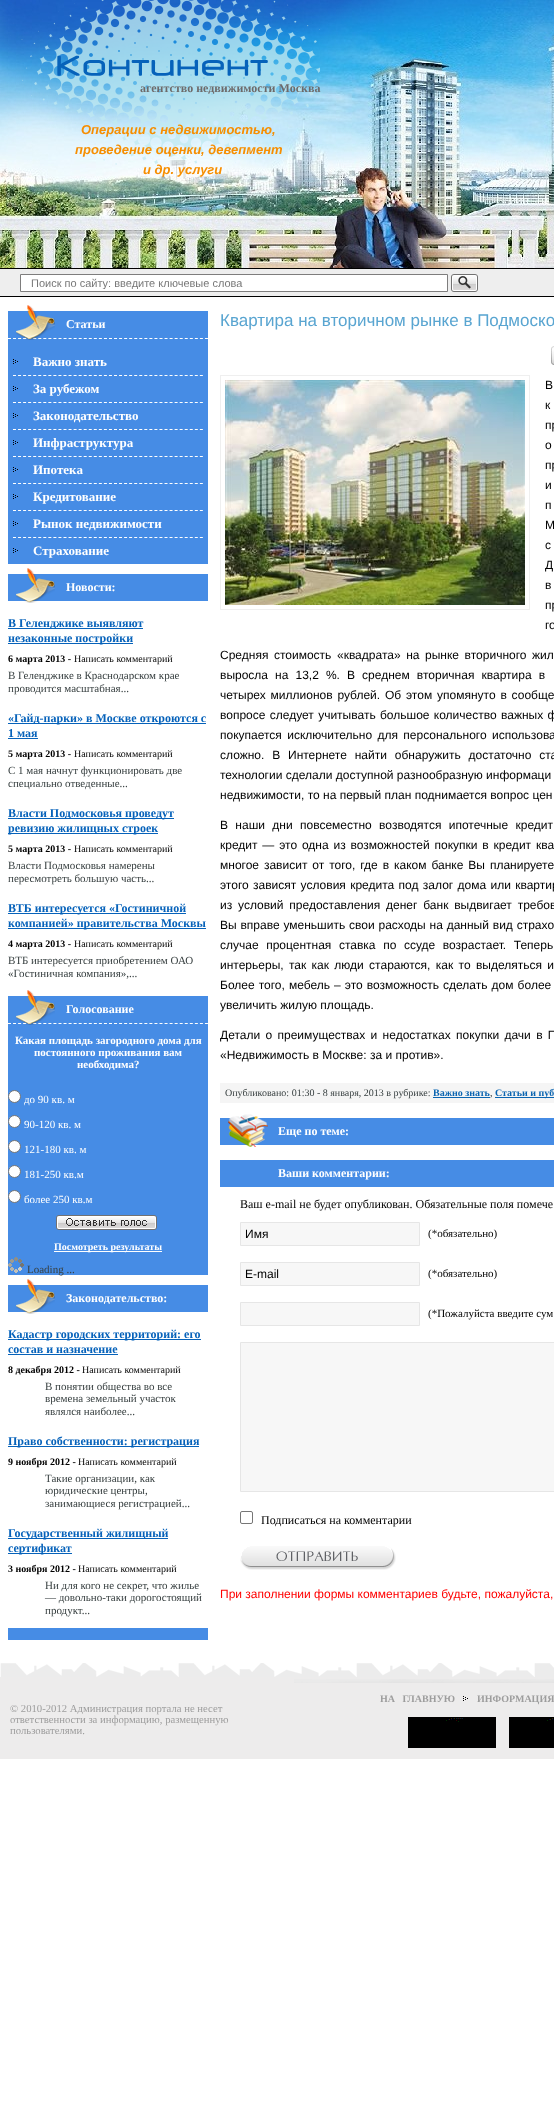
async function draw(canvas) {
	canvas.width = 554;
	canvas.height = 2109;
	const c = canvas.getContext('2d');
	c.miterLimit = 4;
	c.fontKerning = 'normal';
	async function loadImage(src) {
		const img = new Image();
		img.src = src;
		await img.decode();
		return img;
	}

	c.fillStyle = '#fff';
	c.fillRect(0, 0, 554, 2109);
	c.drawImage(await loadImage('img1.png'), 0, 0, 554, 268);
	c.drawImage(await loadImage('img2.png'), 10, 0, 310, 165);
	c.drawImage(await loadImage('img3.png'), 57, 55, 211, 21);
	c.font = 'bold 12px Liberation Serif';
	c.fillStyle = '#6d6a6a';
	c.fillText('агентство недвижимости Москва', 140, 92);
	c.font = 'italic bold 13px Liberation Sans';
	c.fillStyle = '#f68e01';
	for (const [text, x, y] of [
		['Операции с недвижимостью,', 81, 134],
		['проведение оценки, девепмент', 75, 154],
		['и др. услуги', 143, 174],
	]) {
		c.fillText(text, x, y);
	}
	for (const [x, y, w, h, color] of [
		[0, 269, 554, 27, '#eee'],
		[0, 268, 554, 1, '#000'],
		[0, 296, 554, 1, '#000'],
	]) {
		c.fillStyle = color;
		c.fillRect(x, y, w, h);
	}
	c.fillStyle = '#fff';
	c.beginPath();
	c.rect(20.5, 274.5, 427, 17);
	c.fill();
	c.strokeStyle = '#7e7d7d';
	c.stroke();
	c.save();
	c.beginPath();
	c.rect(31, 277, 406, 12);
	c.clip();
	c.font = '11px Liberation Sans';
	c.fillStyle = '#777';
	c.fillText('Поиск по сайту: введите ключевые слова', 31, 287);
	c.restore();
	c.drawImage(await loadImage('img4.png'), 451, 274, 27, 18);
	c.fillStyle = '#468ce5';
	c.fillRect(8, 311, 200, 253);
	c.beginPath();
	c.moveTo(8, 338.5);
	c.lineTo(208, 338.5);
	c.strokeStyle = '#fff';
	c.setLineDash([3, 2.05]);
	c.stroke();
	c.drawImage(await loadImage('img5.png'), 16, 305, 39, 35);
	c.font = 'bold 12px Liberation Serif';
	c.fillStyle = '#fff';
	c.fillText('Статьи', 66, 328);
	c.drawImage(await loadImage('img6.png'), 13, 359, 5, 5);
	c.font = 'bold 13px Liberation Serif';
	c.fillText('Важно знать', 33, 366);
	c.beginPath();
	c.moveTo(13, 375.5);
	c.lineTo(203, 375.5);
	c.stroke();
	c.drawImage(await loadImage('img6.png'), 13, 386, 5, 5);
	c.fillText('За рубежом', 33, 393);
	c.beginPath();
	c.moveTo(13, 402.5);
	c.lineTo(203, 402.5);
	c.stroke();
	c.drawImage(await loadImage('img6.png'), 13, 413, 5, 5);
	c.fillText('Законодательство', 33, 420);
	c.beginPath();
	c.moveTo(13, 429.5);
	c.lineTo(203, 429.5);
	c.stroke();
	c.drawImage(await loadImage('img6.png'), 13, 440, 5, 5);
	c.fillText('Инфраструктура', 33, 447);
	c.beginPath();
	c.moveTo(13, 456.5);
	c.lineTo(203, 456.5);
	c.stroke();
	c.drawImage(await loadImage('img6.png'), 13, 467, 5, 5);
	c.fillText('Ипотека', 33, 474);
	c.beginPath();
	c.moveTo(13, 483.5);
	c.lineTo(203, 483.5);
	c.stroke();
	c.drawImage(await loadImage('img6.png'), 13, 494, 5, 5);
	c.fillText('Кредитование', 33, 501);
	c.beginPath();
	c.moveTo(13, 510.5);
	c.lineTo(203, 510.5);
	c.stroke();
	c.drawImage(await loadImage('img6.png'), 13, 521, 5, 5);
	c.fillText('Рынок недвижимости', 33, 528);
	c.beginPath();
	c.moveTo(13, 537.5);
	c.lineTo(203, 537.5);
	c.stroke();
	c.drawImage(await loadImage('img6.png'), 13, 548, 5, 5);
	c.fillText('Страхование', 33, 555);
	c.fillStyle = '#468ce5';
	c.fillRect(8, 574, 200, 27);
	c.drawImage(await loadImage('img7.png'), 16, 568, 39, 35);
	c.font = 'bold 12px Liberation Serif';
	c.fillStyle = '#fff';
	c.fillText('Новости:', 66, 591);
	c.fillStyle = '#0662ba';
	c.fillRect(8, 628, 135, 1);
	c.fillText('В Геленджике выявляют', 8, 627);
	c.fillRect(8, 643, 125, 1);
	c.fillText('незаконные постройки', 8, 642);
	c.font = 'bold 10px Liberation Serif';
	c.fillStyle = '#000';
	c.fillText('6 марта 2013 -', 8, 662);
	c.font = '10px Liberation Serif';
	c.fillText('Написать комментарий', 74, 662);
	c.font = '11px Liberation Serif';
	c.fillStyle = '#384041';
	c.fillText('В Геленджике в Краснодарском крае', 8, 679);
	c.fillText('проводится масштабная...', 8, 692);
	c.fillStyle = '#0662ba';
	c.fillRect(8, 723, 198, 1);
	c.font = 'bold 12px Liberation Serif';
	c.fillText('«Гайд-парки» в Москве откроются с', 8, 722);
	c.fillText('1 мая', 8, 737);
	c.fillRect(8, 738, 30, 1);
	c.font = 'bold 10px Liberation Serif';
	c.fillStyle = '#000';
	c.fillText('5 марта 2013 -', 8, 757);
	c.font = '10px Liberation Serif';
	c.fillText('Написать комментарий', 74, 757);
	c.font = '11px Liberation Serif';
	c.fillStyle = '#384041';
	c.fillText('С 1 мая начнут функционировать две', 8, 774);
	c.fillText('специально отведенные...', 8, 787);
	c.fillStyle = '#0662ba';
	c.fillRect(8, 818, 166, 1);
	c.font = 'bold 12px Liberation Serif';
	c.fillText('Власти Подмосковья проведут', 8, 817);
	c.fillRect(8, 833, 150, 1);
	c.fillText('ревизию жилищных строек', 8, 832);
	c.font = 'bold 10px Liberation Serif';
	c.fillStyle = '#000';
	c.fillText('5 марта 2013 -', 8, 852);
	c.font = '10px Liberation Serif';
	c.fillText('Написать комментарий', 74, 852);
	c.font = '11px Liberation Serif';
	c.fillStyle = '#384041';
	c.fillText('Власти Подмосковья намерены', 8, 869);
	c.fillText('пересмотреть большую часть...', 8, 882);
	c.fillStyle = '#0662ba';
	c.fillRect(8, 913, 178, 1);
	c.font = 'bold 12px Liberation Serif';
	c.fillText('ВТБ интересуется «Гостиничной', 8, 912);
	c.fillRect(8, 928, 198, 1);
	c.fillText('компанией» правительства Москвы', 8, 927);
	c.font = 'bold 10px Liberation Serif';
	c.fillStyle = '#000';
	c.fillText('4 марта 2013 -', 8, 947);
	c.font = '10px Liberation Serif';
	c.fillText('Написать комментарий', 74, 947);
	c.font = '11px Liberation Serif';
	c.fillStyle = '#384041';
	c.fillText('ВТБ интересуется приобретением ОАО', 8, 964);
	c.fillText('«Гостиничная компания»,...', 8, 977);
	c.fillStyle = '#468ce5';
	c.fillRect(8, 996, 200, 279);
	c.beginPath();
	c.moveTo(8, 1023.5);
	c.lineTo(208, 1023.5);
	c.stroke();
	c.drawImage(await loadImage('img5.png'), 16, 990, 39, 35);
	c.font = 'bold 12px Liberation Serif';
	c.fillStyle = '#fff';
	c.fillText('Голосование', 66, 1013);
	c.font = 'bold 11px Liberation Serif';
	for (const [text, x, y] of [
		['Какая площадь загородного дома для', 15, 1044],
		['постоянного проживания вам', 34, 1056],
		['необходима?', 77, 1068],
	]) {
		c.fillText(text, x, y);
	}
	c.beginPath();
	c.arc(14.5, 1096.5, 6, 0, 2 * Math.PI);
	c.fill();
	c.strokeStyle = '#767676';
	c.setLineDash([]);
	c.stroke();
	c.font = '11px Liberation Serif';
	c.fillText('до 90 кв. м', 24, 1103);
	c.beginPath();
	c.arc(14.5, 1121.5, 6, 0, 2 * Math.PI);
	c.fill();
	c.stroke();
	c.fillText('90-120 кв. м', 24, 1128);
	c.beginPath();
	c.arc(14.5, 1146.5, 6, 0, 2 * Math.PI);
	c.fill();
	c.stroke();
	c.fillText('121-180 кв. м', 24, 1153);
	c.beginPath();
	c.arc(14.5, 1171.5, 6, 0, 2 * Math.PI);
	c.fill();
	c.stroke();
	c.fillText('181-250 кв.м', 24, 1178);
	c.beginPath();
	c.arc(14.5, 1196.5, 6, 0, 2 * Math.PI);
	c.fill();
	c.stroke();
	c.fillText('более 250 кв.м', 24, 1203);
	c.drawImage(await loadImage('img8.png'), 56, 1215, 101, 15);
	c.fillRect(54, 1251, 108, 1);
	c.font = 'bold 10px Liberation Serif';
	c.fillText('Посмотреть результаты', 54, 1250);
	c.drawImage(await loadImage('img9.png'), 8, 1257, 16, 16);
	c.font = '11px Liberation Serif';
	c.fillStyle = '#384041';
	c.fillText('Loading ...', 27, 1273);
	c.fillStyle = '#468ce5';
	c.fillRect(8, 1285, 200, 27);
	c.drawImage(await loadImage('img7.png'), 16, 1279, 39, 35);
	c.font = 'bold 12px Liberation Serif';
	c.fillStyle = '#fff';
	c.fillText('Законодательство:', 66, 1302);
	c.fillStyle = '#0662ba';
	c.fillRect(8, 1339, 193, 1);
	c.fillText('Кадастр городских территорий: его', 8, 1338);
	c.fillText('состав и назначение', 8, 1353);
	c.fillRect(8, 1354, 110, 1);
	c.font = 'bold 10px Liberation Serif';
	c.fillStyle = '#000';
	c.fillText('8 декабря 2012 -', 8, 1373);
	c.font = '10px Liberation Serif';
	c.fillText('Написать комментарий', 82, 1373);
	c.font = '11px Liberation Serif';
	c.fillStyle = '#384041';
	for (const [text, x, y] of [
		['В понятии общества во все', 45, 1390],
		['времена земельный участок', 45, 1402],
		['являлся наиболее...', 45, 1415],
	]) {
		c.fillText(text, x, y);
	}
	c.fillStyle = '#0662ba';
	c.fillRect(8, 1446, 191, 1);
	c.font = 'bold 12px Liberation Serif';
	c.fillText('Право собственности: регистрация', 8, 1445);
	c.font = 'bold 10px Liberation Serif';
	c.fillStyle = '#000';
	c.fillText('9 ноября 2012 -', 8, 1465);
	c.font = '10px Liberation Serif';
	c.fillText('Написать комментарий', 78, 1465);
	c.font = '11px Liberation Serif';
	c.fillStyle = '#384041';
	for (const [text, x, y] of [
		['Такие организации, как', 45, 1482],
		['юридические центры,', 45, 1494],
		['занимающиеся регистрацией...', 45, 1507],
	]) {
		c.fillText(text, x, y);
	}
	c.fillStyle = '#0662ba';
	c.fillRect(8, 1538, 160, 1);
	c.font = 'bold 12px Liberation Serif';
	c.fillText('Государственный жилищный', 8, 1537);
	c.fillRect(8, 1553, 64, 1);
	c.fillText('сертификат', 8, 1552);
	c.font = 'bold 10px Liberation Serif';
	c.fillStyle = '#000';
	c.fillText('3 ноября 2012 -', 8, 1572);
	c.font = '10px Liberation Serif';
	c.fillText('Написать комментарий', 78, 1572);
	c.font = '11px Liberation Serif';
	c.fillStyle = '#384041';
	for (const [text, x, y] of [
		['Ни для кого не секрет, что жилье', 45, 1589],
		['— довольно-таки дорогостоящий', 45, 1601],
		['продукт...', 45, 1614],
	]) {
		c.fillText(text, x, y);
	}
	c.fillStyle = '#468ce5';
	c.fillRect(8, 1628, 200, 12);
	c.font = '17px Liberation Sans';
	c.fillStyle = '#59a5d1';
	c.fillText('Квартира на вторичном рынке в Подмоско', 220, 326);
	c.drawImage(await loadImage('img10.png'), 551, 346, 3, 19);
	c.strokeStyle = '#efefef';
	c.strokeRect(220.5, 375.5, 309, 234);
	c.drawImage(await loadImage('img11.png'), 225, 380, 300, 225);
	c.wordSpacing = '1px';
	c.font = '12px Liberation Sans';
	c.fillStyle = '#000';
	c.fillText('В', 545, 389);
	c.wordSpacing = '13px';
	c.fillText('к', 545, 409);
	c.wordSpacing = '12px';
	c.fillText('пр', 545, 429);
	c.wordSpacing = '31px';
	c.fillText('о', 545, 449);
	c.wordSpacing = '10px';
	c.fillText('пр', 545, 469);
	c.wordSpacing = '2.5px';
	c.fillText('и', 545, 489);
	c.wordSpacing = '2px';
	c.fillText('п', 545, 509);
	c.wordSpacing = '6px';
	c.fillText('М', 545, 529);
	c.wordSpacing = '1px';
	c.fillText('с', 545, 549);
	c.wordSpacing = '7px';
	c.fillText('Д', 545, 569);
	c.fillText('в', 545, 589);
	c.wordSpacing = '5px';
	c.fillText('пр', 545, 609);
	c.wordSpacing = '0px';
	c.fillText('го', 545, 629);
	c.wordSpacing = '2.25px';
	c.fillText('Средняя стоимость «квадрата» на рынке вторичного жил', 220, 659);
	c.wordSpacing = '3.75px';
	c.fillText('выросла на 13,2 %. В среднем вторичная квартира в', 220, 679);
	c.wordSpacing = '1.5px';
	c.fillText('четырех миллионов рублей. Об этом упомянуто в сообще', 220, 699);
	c.wordSpacing = '1px';
	c.fillText('вопросе следует учитывать большое количество важных ф', 220, 719);
	c.wordSpacing = '2px';
	c.fillText('покупается исключительно для персонального использова', 220, 739);
	c.wordSpacing = '4.5px';
	c.fillText('сложно. В Интернете найти обнаружить достаточно ста', 220, 759);
	c.wordSpacing = '0px';
	c.fillText('технологии сделали доступной разнообразную информаци', 220, 779);
	c.fillText('недвижимости, то на первый план поднимается вопрос цен', 220, 799);
	c.wordSpacing = '4px';
	c.fillText('В наши дни повсеместно возводятся ипотечные кредит', 220, 829);
	c.wordSpacing = '1.5px';
	c.fillText('кредит — это одна из возможностей покупки в кредит ква', 220, 849);
	c.wordSpacing = '1.6px';
	c.fillText('многое зависит от того, где в каком банке Вы планируете', 220, 869);
	c.wordSpacing = '1px';
	c.fillText('этого зависят условия кредита под залог дома или квартир', 220, 889);
	c.wordSpacing = '2.5px';
	c.fillText('из условий предоставления денег банк выдвигает требов', 220, 909);
	c.wordSpacing = '0.5px';
	c.fillText('Вы вправе уменьшить свои расходы на данный вид страхо', 220, 929);
	c.wordSpacing = '4.25px';
	c.fillText('случае процентная ставка по ссуде возрастает. Теперь', 220, 949);
	c.wordSpacing = '2px';
	c.fillText('интерьеры, так как люди стараются, как то выделяться и', 220, 969);
	c.wordSpacing = '0.75px';
	c.fillText('Более того, мебель – это возможность сделать дом более', 220, 989);
	c.wordSpacing = '0px';
	c.fillText('увеличить жилую площадь.', 220, 1009);
	c.wordSpacing = '2px';
	c.fillText('Детали о преимуществах и недостатках покупки дачи в П', 220, 1039);
	c.wordSpacing = '0px';
	c.fillText('«Недвижимость в Москве: за и против».', 220, 1059);
	c.fillStyle = '#f5f5f5';
	c.fillRect(220, 1083, 334, 20);
	c.font = '10px Liberation Serif';
	c.fillStyle = '#384041';
	c.fillText('Опубликовано: 01:30 - 8 января, 2013 в рубрике:', 225, 1096);
	c.font = 'bold 10px Liberation Serif';
	c.fillStyle = '#0b65b1';
	c.fillText('Важно знать', 433, 1096);
	c.fillRect(433, 1097, 57, 1);
	c.font = '10px Liberation Serif';
	c.fillStyle = '#384041';
	c.fillText(',', 490, 1096);
	c.fillStyle = '#0b65b1';
	c.fillRect(495, 1097, 59, 1);
	c.font = 'bold 10px Liberation Serif';
	c.fillText('Статьи и пуб', 495, 1096);
	c.fillStyle = '#468ce5';
	c.fillRect(220, 1118, 334, 27);
	c.drawImage(await loadImage('img12.png'), 228, 1114, 40, 33);
	c.font = 'bold 12px Liberation Serif';
	c.fillStyle = '#fff';
	c.fillText('Еще по теме:', 278, 1135);
	c.fillStyle = '#468ce5';
	c.fillRect(220, 1160, 334, 27);
	c.fillStyle = '#fff';
	c.fillText('Ваши комментарии:', 278, 1177);
	c.font = '12px Liberation Serif';
	c.fillStyle = '#000';
	c.fillText('Ваш e-mail не будет опубликован. Обязательные поля помече', 240, 1208);
	c.fillStyle = '#f7f7f7';
	c.beginPath();
	c.rect(240.5, 1222.5, 179, 23);
	c.fill();
	c.strokeStyle = '#e6e6e6';
	c.stroke();
	c.font = '12px Liberation Sans';
	c.fillStyle = '#000';
	c.fillText('Имя', 245, 1238);
	c.font = '11px Liberation Serif';
	c.fillText('(*обязательно)', 428, 1237);
	c.fillStyle = '#f7f7f7';
	c.beginPath();
	c.rect(240.5, 1262.5, 179, 23);
	c.fill();
	c.stroke();
	c.font = '12px Liberation Sans';
	c.fillStyle = '#000';
	c.fillText('E-mail', 245, 1278);
	c.font = '11px Liberation Serif';
	c.fillText('(*обязательно)', 428, 1277);
	c.fillStyle = '#f7f7f7';
	c.beginPath();
	c.rect(240.5, 1302.5, 179, 23);
	c.fill();
	c.stroke();
	c.fillStyle = '#000';
	c.fillText('(*Пожалуйста введите сум', 428, 1317);
	c.fillStyle = '#f7f7f7';
	c.beginPath();
	c.rect(240.5, 1342.5, 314, 149);
	c.fill();
	c.stroke();
	c.beginPath();
	c.roundRect(240.5, 1511.5, 12, 12, 1.5);
	c.strokeStyle = '#767676';
	c.stroke();
	c.font = '12px Liberation Serif';
	c.fillStyle = '#000';
	c.fillText('Подписаться на комментарии', 261, 1524);
	c.drawImage(await loadImage('img13.png'), 240, 1546, 156, 24);
	c.font = '12px Liberation Sans';
	c.fillStyle = '#f00';
	c.fillText('При заполнении формы комментариев будьте, пожалуйста,', 220, 1598);
	c.fillStyle = '#edecec';
	c.fillRect(0, 1677, 554, 82);
	c.drawImage(await loadImage('img14.png'), 0, 1663, 554, 14);
	c.drawImage(await loadImage('img15.png'), 294, 1679, 260, 4);
	c.wordSpacing = '5px';
	c.font = 'bold 10px Liberation Serif';
	c.fillStyle = '#9d9d9d';
	c.fillText('НА ГЛАВНУЮ', 380, 1702);
	c.drawImage(await loadImage('img16.png'), 463, 1696, 5, 5);
	c.wordSpacing = '0px';
	c.fillText('ИНФОРМАЦИЯ', 477, 1702);
	c.drawImage(await loadImage('img17.png'), 408, 1717, 88, 31);
	c.drawImage(await loadImage('img18.png'), 509, 1717, 45, 31);
	c.font = '10.7px Liberation Serif';
	for (const [text, x, y] of [
		['© 2010-2012 Администрация портала не несет', 10, 1712],
		['ответственности за информацию, размещенную', 10, 1723],
		['пользователями.', 10, 1734],
	]) {
		c.fillText(text, x, y);
	}
}

draw(document.querySelector('canvas'));
